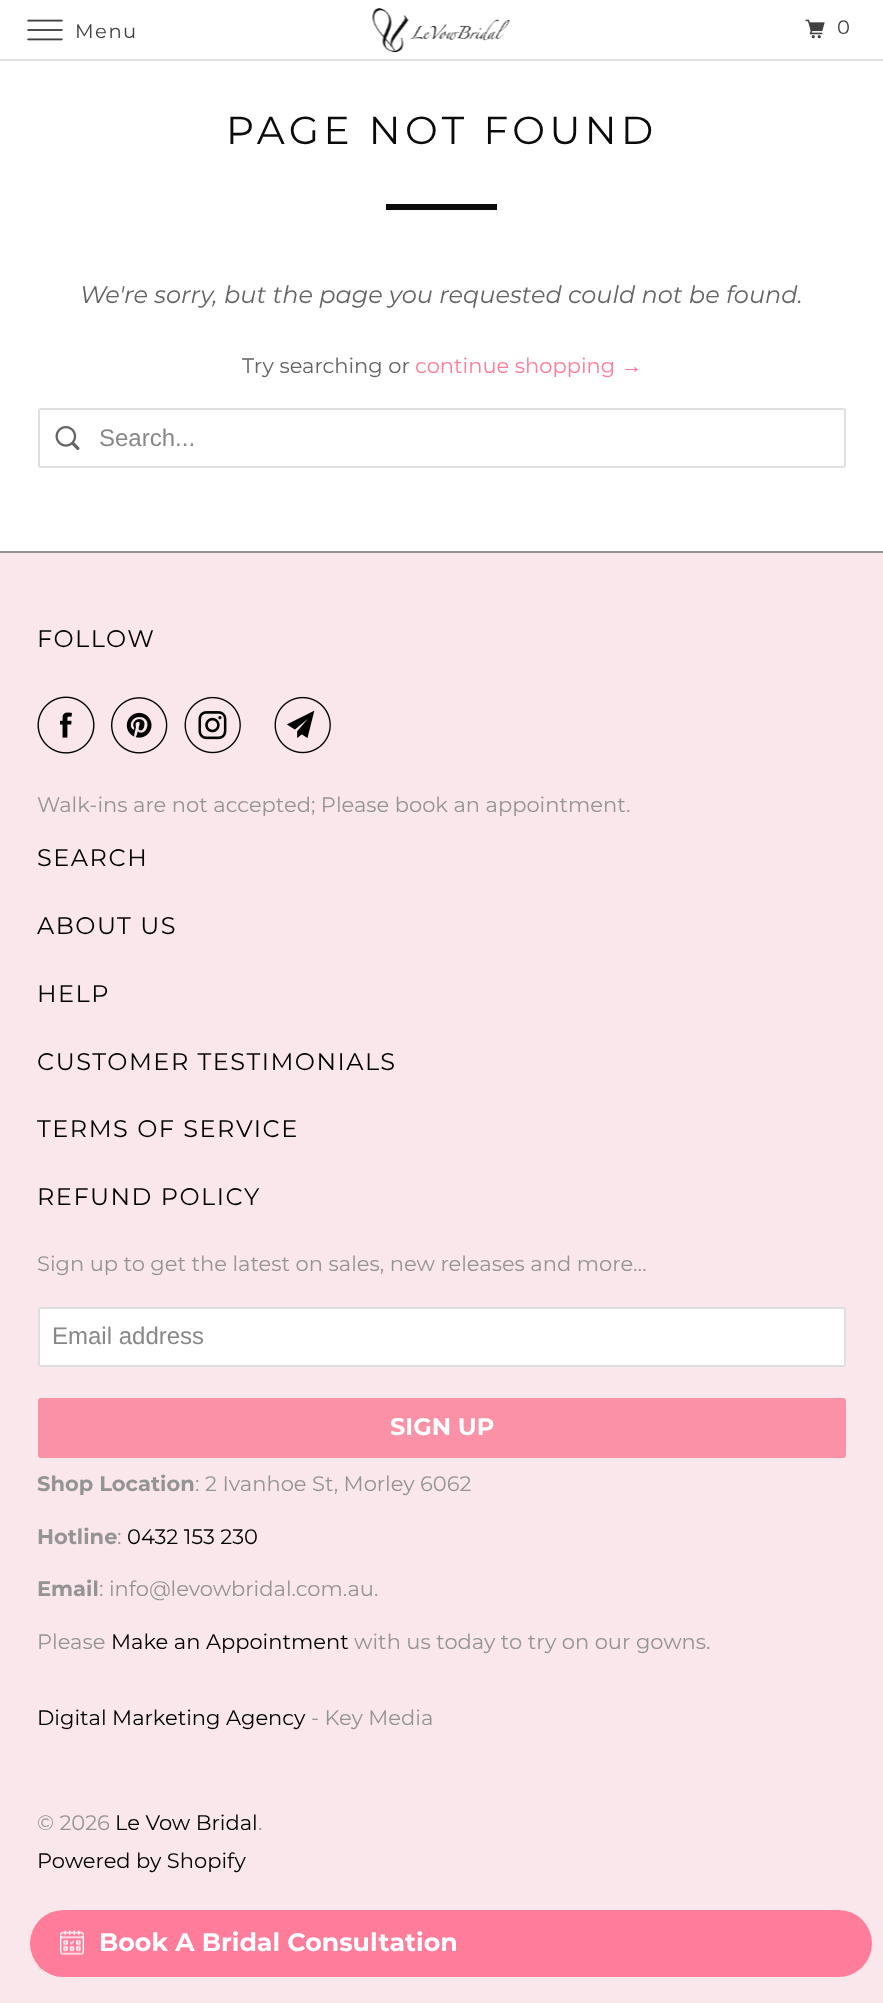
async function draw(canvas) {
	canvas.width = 883;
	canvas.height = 2003;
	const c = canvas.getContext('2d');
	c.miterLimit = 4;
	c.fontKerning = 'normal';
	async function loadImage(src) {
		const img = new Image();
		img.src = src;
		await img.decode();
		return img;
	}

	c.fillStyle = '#fff';
	c.fillRect(0, 0, 883, 2003);
	c.fillStyle = '#dfdfdf';
	c.fillRect(0, 59, 883, 2);
	c.drawImage(await loadImage('img1.png'), 27, 19, 36, 22);
	c.letterSpacing = '1.5px';
	c.font = '19.5px Montserrat';
	c.fillStyle = '#414040';
	c.fillText('Menu', 75, 38);
	c.drawImage(await loadImage('img2.png'), 372, 8, 138, 45);
	c.drawImage(await loadImage('img3.png'), 805, 19, 20, 20);
	c.fillText('0', 837, 34);
	c.letterSpacing = '4.5px';
	c.font = '39px Montserrat';
	c.fillStyle = '#0b0b0b';
	c.fillText('PAGE NOT FOUND', 226, 144);
	c.fillRect(386, 204, 111, 6);
	c.letterSpacing = '0px';
	c.font = 'italic 24px Montserrat';
	c.fillStyle = '#646464';
	c.fillText('We\'re sorry, but the page you requested could not be found.', 80, 303);
	c.font = '21px Montserrat';
	c.fillText('Try searching or', 242, 373);
	c.fillStyle = '#ff7c97';
	c.fillText('continue shopping', 415, 373);
	c.font = '21px Liberation Sans';
	c.fillText('→', 621, 373);
	c.beginPath();
	c.roundRect(39, 409, 806, 58, 2);
	c.strokeStyle = '#dfdfdf';
	c.lineWidth = 2;
	c.stroke();
	c.drawImage(await loadImage('img4.png'), 55, 426, 25, 24);
	c.font = '24px Liberation Sans';
	c.fillStyle = '#888';
	c.fillText('Search...', 99, 446);
	c.fillStyle = '#fae7eb';
	c.fillRect(0, 553, 883, 1450);
	c.fillStyle = '#949494';
	c.fillRect(0, 551, 883, 2);
	c.letterSpacing = '1.5px';
	c.font = '24px Montserrat';
	c.fillStyle = '#000';
	c.fillText('FOLLOW', 37, 647);
	c.drawImage(await loadImage('img5.png'), 37, 696, 58, 58);
	c.drawImage(await loadImage('img6.png'), 111, 697, 57, 57);
	c.drawImage(await loadImage('img7.png'), 184, 696, 57, 58);
	c.drawImage(await loadImage('img8.png'), 274, 696, 57, 58);
	c.letterSpacing = '0px';
	c.font = '21px Montserrat';
	c.fillStyle = '#949494';
	c.fillText('Walk-ins are not accepted; Please book an appointment.', 37, 812);
	c.letterSpacing = '1.5px';
	c.font = '24px Montserrat';
	c.fillStyle = '#000';
	for (const [text, x, y] of [
		['SEARCH', 37, 866],
		['ABOUT US', 37, 934],
		['HELP', 37, 1002],
		['CUSTOMER TESTIMONIALS', 37, 1070],
		['TERMS OF SERVICE', 37, 1137],
		['REFUND POLICY', 37, 1205],
	]) {
		c.fillText(text, x, y);
	}
	c.letterSpacing = '0px';
	c.font = '21px Montserrat';
	c.fillStyle = '#949494';
	c.fillText('Sign up to get the latest on sales, new releases and more…', 37, 1271);
	c.fillStyle = '#fff';
	c.beginPath();
	c.roundRect(39, 1308, 806, 58, 2);
	c.fill();
	c.stroke();
	c.font = '24px Liberation Sans';
	c.fillStyle = '#888';
	c.fillText('Email address', 52, 1344);
	c.fillStyle = '#fa91a6';
	c.beginPath();
	c.roundRect(38, 1398, 808, 60, 3);
	c.fill();
	c.font = 'bold 24px Montserrat';
	c.fillStyle = '#fff';
	c.fillText('SIGN UP', 390, 1435);
	c.font = 'bold 21px Montserrat';
	c.fillStyle = '#949494';
	c.fillText('Shop Location', 37, 1491);
	c.font = '21px Montserrat';
	c.fillText(': 2 Ivanhoe St, Morley 6062', 195, 1491);
	c.font = 'bold 21px Montserrat';
	c.fillText('Hotline', 37, 1544);
	c.font = '21px Montserrat';
	c.fillText(':', 117, 1544);
	c.fillStyle = '#000';
	c.fillText('0432 153 230', 127, 1544);
	c.font = 'bold 21px Montserrat';
	c.fillStyle = '#949494';
	c.fillText('Email', 37, 1596);
	c.font = '21px Montserrat';
	c.fillText(': info@levowbridal.com.au.', 99, 1596);
	c.fillText('Please', 37, 1649);
	c.fillStyle = '#000';
	c.fillText('Make an Appointment', 111, 1649);
	c.fillStyle = '#949494';
	c.fillText('with us today to try on our gowns.', 354, 1649);
	c.fillStyle = '#000';
	c.fillText('Digital Marketing Agency', 37, 1725);
	c.fillStyle = '#949494';
	c.fillText('- Key Media', 311, 1725);
	c.fillText('© 2026', 37, 1830);
	c.fillStyle = '#000';
	c.fillText('Le Vow Bridal', 115, 1830);
	c.fillStyle = '#949494';
	c.fillText('.', 258, 1830);
	c.fillStyle = '#000';
	c.fillText('Powered by Shopify', 37, 1868);
	c.drawImage(await loadImage('img9.png'), 38, 1965, 7, 6);
	c.fillStyle = '#ff7c9b';
	c.beginPath();
	c.roundRect(30, 1910, 842, 67, 33.5);
	c.fill();
	c.drawImage(await loadImage('img10.png'), 60, 1930, 24, 25);
	c.font = 'bold 25.25px Montserrat';
	c.fillStyle = '#fff';
	c.fillText('Book A Bridal Consultation', 99, 1951);
}

draw(document.querySelector('canvas'));
